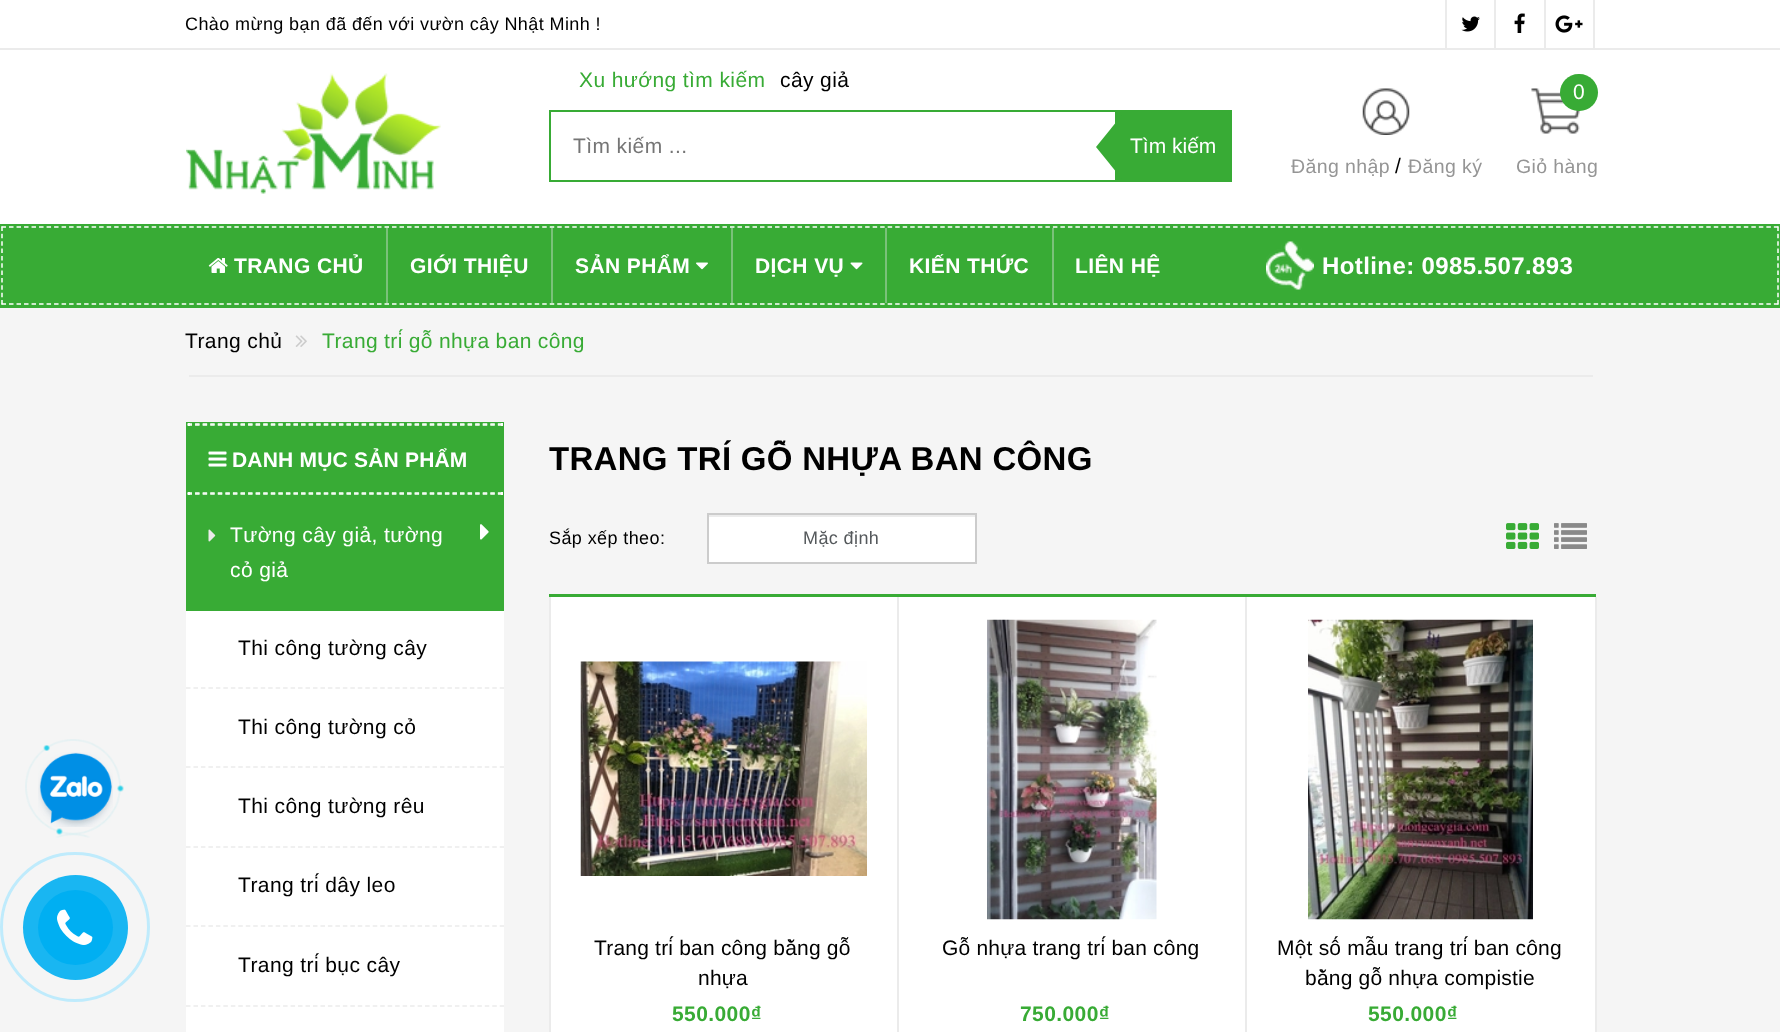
async function draw(canvas) {
	canvas.width = 1780;
	canvas.height = 1032;
	const c = canvas.getContext('2d');
	c.miterLimit = 4;
	c.fontKerning = 'normal';
	async function loadImage(src) {
		const img = new Image();
		img.src = src;
		await img.decode();
		return img;
	}

	c.fillStyle = '#f5f5f5';
	c.fillRect(0, 0, 1780, 1032);
	c.fillStyle = '#fff';
	c.fillRect(0, 0, 1780, 48);
	c.fillStyle = '#ebebeb';
	c.fillRect(0, 48, 1780, 2);
	c.letterSpacing = '0.4px';
	c.font = '18px Liberation Sans';
	c.fillStyle = '#000';
	c.fillText('Chào mừng bạn đã đến với vườn cây Nhật Minh !', 185, 30);
	c.fillStyle = '#ebebeb';
	c.fillRect(1445, 0, 2, 48);
	c.drawImage(await loadImage('img1.png'), 1461, 16, 19, 16);
	c.fillRect(1494, 0, 2, 48);
	c.drawImage(await loadImage('img2.png'), 1514, 13, 11, 20);
	c.fillRect(1593, 0, 2, 48);
	c.fillRect(1544, 0, 2, 48);
	c.drawImage(await loadImage('img3.png'), 1555, 15, 28, 18);
	c.fillStyle = '#fff';
	c.fillRect(0, 50, 1780, 174);
	c.drawImage(await loadImage('img4.png'), 186, 73, 255, 121);
	c.font = '21px Liberation Sans';
	c.fillStyle = '#38ab35';
	c.fillText('Xu hướng tìm kiếm', 579, 87);
	c.fillStyle = '#000';
	c.fillText('cây giả', 780, 87);
	c.strokeStyle = '#38ab35';
	c.lineWidth = 2;
	c.strokeRect(550, 111, 681, 70);
	c.fillStyle = '#757575';
	c.fillText('Tìm kiếm ...', 573, 153);
	c.fillStyle = '#38ab35';
	c.fillRect(1115, 112, 115, 68);
	c.save();
	c.beginPath();
	c.rect(549, 110, 683, 72);
	c.clip();
	c.beginPath();
	c.moveTo(1126, 110);
	c.lineTo(1126, 184);
	c.lineTo(1096, 147);
	c.closePath();
	c.fill();
	c.restore();
	c.letterSpacing = '0px';
	c.fillStyle = '#fff';
	c.fillText('Tìm kiếm', 1130, 153);
	c.drawImage(await loadImage('img5.png'), 1362, 88, 48, 47);
	c.letterSpacing = '0.4px';
	c.font = '19.5px Liberation Sans';
	c.fillStyle = '#959595';
	c.fillText('Đăng nhập', 1291, 173);
	c.font = '21px Liberation Sans';
	c.fillStyle = '#000';
	c.fillText('/', 1395, 173);
	c.font = '19.5px Liberation Sans';
	c.fillStyle = '#959595';
	c.fillText('Đăng ký', 1408, 173);
	c.drawImage(await loadImage('img6.png'), 1531, 88, 49, 46);
	c.fillStyle = '#38ab35';
	c.beginPath();
	c.roundRect(1560, 74, 38, 37, 18.5);
	c.fill();
	c.font = '21px Liberation Sans';
	c.fillStyle = '#fff';
	c.fillText('0', 1573, 99);
	c.font = '19.5px Liberation Sans';
	c.fillStyle = '#959595';
	c.fillText('Giỏ hàng', 1516, 173);
	c.fillStyle = '#38ab35';
	c.fillRect(0, 224, 1780, 84);
	c.beginPath();
	c.moveTo(1.5, 227);
	c.lineTo(1779, 227);
	c.strokeStyle = '#fff';
	c.lineWidth = 1.5;
	c.setLineDash([4.5, 3.01]);
	c.stroke();
	c.beginPath();
	c.moveTo(1778, 226.5);
	c.lineTo(1778, 304.5);
	c.setLineDash([4.5, 2.85]);
	c.stroke();
	c.beginPath();
	c.moveTo(1.5, 304);
	c.lineTo(1779, 304);
	c.setLineDash([4.5, 3.01]);
	c.stroke();
	c.beginPath();
	c.moveTo(2, 226.5);
	c.lineTo(2, 304.5);
	c.setLineDash([4.5, 2.85]);
	c.stroke();
	c.drawImage(await loadImage('img7.png'), 208, 258, 20, 15);
	c.font = 'bold 21px Liberation Sans';
	c.fillStyle = '#fff';
	c.fillText('TRANG CHỦ', 234, 273);
	c.fillStyle = '#7ac17a';
	c.fillRect(386, 228, 2, 75);
	c.fillStyle = '#fff';
	c.fillText('GIỚI THIỆU', 410, 273);
	c.fillStyle = '#7ac17a';
	c.fillRect(551, 228, 2, 75);
	c.fillStyle = '#fff';
	c.fillText('SẢN PHẨM', 575, 273);
	c.drawImage(await loadImage('img8.png'), 696, 262, 12, 8);
	c.fillStyle = '#7ac17a';
	c.fillRect(731, 228, 2, 75);
	c.fillStyle = '#fff';
	c.fillText('DỊCH VỤ', 755, 273);
	c.drawImage(await loadImage('img9.png'), 850, 262, 13, 8);
	c.fillStyle = '#7ac17a';
	c.fillRect(885, 228, 2, 75);
	c.fillStyle = '#fff';
	c.fillText('KIẾN THỨC', 909, 273);
	c.fillStyle = '#7ac17a';
	c.fillRect(1052, 228, 2, 75);
	c.fillStyle = '#fff';
	c.fillText('LIÊN HỆ', 1075, 273);
	c.drawImage(await loadImage('img10.png'), 1266, 241, 48, 49);
	c.font = 'bold 24px Liberation Sans';
	c.fillText('Hotline: 0985.507.893', 1322, 274);
	c.drawImage(await loadImage('img11.png'), 25, 739, 99, 99);
	c.drawImage(await loadImage('img12.png'), 38, 752, 75, 75);
	c.fillStyle = '#ebebeb';
	c.fillRect(189, 375, 1404, 2);
	c.font = '21px Liberation Sans';
	c.fillStyle = '#000';
	c.fillText('Trang chủ', 185, 348);
	c.drawImage(await loadImage('img13.png'), 295, 335, 12, 12);
	c.wordSpacing = '-0.25px';
	c.fillStyle = '#38ab35';
	c.fillText('Trang trí gỗ nhựa ban công', 322, 348);
	c.fillRect(186, 422, 318, 189);
	c.beginPath();
	c.moveTo(187.5, 424);
	c.lineTo(502.5, 424);
	c.setLineDash([4.5, 3.07]);
	c.stroke();
	c.fillStyle = '#fff';
	c.fillRect(501, 423, 2, 3);
	c.beginPath();
	c.moveTo(187.5, 425);
	c.lineTo(502.5, 425);
	c.stroke();
	c.fillRect(188, 423, 2, 3);
	c.drawImage(await loadImage('img14.png'), 208, 451, 19, 16);
	c.letterSpacing = '0.2px';
	c.wordSpacing = '0px';
	c.font = 'bold 21px Liberation Sans';
	c.fillText('DANH MỤC SẢN PHẨM', 232, 467);
	c.beginPath();
	c.moveTo(187.5, 493);
	c.lineTo(502.5, 493);
	c.stroke();
	c.fillRect(501, 492, 2, 3);
	c.beginPath();
	c.moveTo(187.5, 494);
	c.lineTo(502.5, 494);
	c.stroke();
	c.fillRect(188, 492, 2, 3);
	c.drawImage(await loadImage('img15.png'), 208, 529, 8, 13);
	c.letterSpacing = '0.4px';
	c.font = '21px Liberation Sans';
	c.fillText('Tường cây giả, tường', 230, 542);
	c.fillText('cỏ giả', 230, 577);
	c.drawImage(await loadImage('img16.png'), 480, 524, 9, 16);
	c.fillRect(186, 611, 318, 421);
	c.beginPath();
	c.moveTo(186, 688);
	c.lineTo(504, 688);
	c.strokeStyle = '#ebebeb';
	c.setLineDash([4.5, 2.97]);
	c.stroke();
	c.fillStyle = '#000';
	c.fillText('Thi công tường cây', 238, 655);
	c.beginPath();
	c.moveTo(186, 767);
	c.lineTo(504, 767);
	c.stroke();
	c.fillText('Thi công tường cỏ', 238, 734);
	c.beginPath();
	c.moveTo(186, 847);
	c.lineTo(504, 847);
	c.stroke();
	c.fillText('Thi công tường rêu', 238, 813);
	c.beginPath();
	c.moveTo(186, 926);
	c.lineTo(504, 926);
	c.stroke();
	c.fillText('Trang trí dây leo', 238, 892);
	c.beginPath();
	c.moveTo(186, 1006);
	c.lineTo(504, 1006);
	c.stroke();
	c.fillText('Trang trí bục cây', 238, 972);
	c.letterSpacing = '0.3px';
	c.font = 'bold 33px Liberation Sans';
	c.fillText('TRANG TRÍ GỖ NHỰA BAN CÔNG', 549, 470);
	c.letterSpacing = '0.4px';
	c.font = '18px Liberation Sans';
	c.fillText('Sắp xếp theo:', 549, 544);
	c.fillStyle = '#fff';
	c.fillRect(709, 517, 266, 45);
	c.fillStyle = '#ececec';
	c.fillRect(708, 515, 267, 2);
	c.strokeStyle = '#ccc';
	c.lineWidth = 2;
	c.setLineDash([]);
	c.strokeRect(708, 514, 268, 49);
	c.fillStyle = '#55595c';
	c.fillText('Mặc định', 803, 544);
	c.drawImage(await loadImage('img17.png'), 1506, 523, 33, 26);
	c.drawImage(await loadImage('img18.png'), 1554, 523, 33, 26);
	for (const [x, y, w, h, color] of [
		[549, 594, 1047, 3, '#38ab35'],
		[551, 597, 346, 435, '#fff'],
		[897, 597, 2, 435, '#ebebeb'],
		[549, 597, 2, 435, '#ebebeb'],
	]) {
		c.fillStyle = color;
		c.fillRect(x, y, w, h);
	}
	c.drawImage(await loadImage('img19.png'), 580, 661, 287, 215);
	c.letterSpacing = '0.2px';
	c.font = '21px Liberation Sans';
	c.fillStyle = '#000';
	c.fillText('Trang trí ban công bằng gỗ', 594, 955);
	c.fillText('nhựa', 698, 985);
	c.letterSpacing = '0.4px';
	c.font = 'bold 21px Liberation Sans';
	c.fillStyle = '#38ab35';
	c.fillText('550.000₫', 672, 1021);
	c.fillStyle = '#fff';
	c.fillRect(899, 597, 346, 435);
	c.fillStyle = '#ebebeb';
	c.fillRect(1245, 597, 2, 435);
	c.drawImage(await loadImage('img20.png'), 987, 619, 170, 301);
	c.letterSpacing = '0.2px';
	c.font = '21px Liberation Sans';
	c.fillStyle = '#000';
	c.fillText('Gỗ nhựa trang trí ban công', 942, 955);
	c.letterSpacing = '0.4px';
	c.font = 'bold 21px Liberation Sans';
	c.fillStyle = '#38ab35';
	c.fillText('750.000₫', 1020, 1021);
	c.fillStyle = '#fff';
	c.fillRect(1247, 597, 348, 435);
	c.fillStyle = '#ebebeb';
	c.fillRect(1595, 597, 2, 435);
	c.drawImage(await loadImage('img21.png'), 1308, 619, 225, 301);
	c.letterSpacing = '0.2px';
	c.font = '21px Liberation Sans';
	c.fillStyle = '#000';
	c.fillText('Một số mẫu trang trí ban công', 1277, 955);
	c.fillText('bằng gỗ nhựa compistie', 1305, 985);
	c.letterSpacing = '0.4px';
	c.font = 'bold 21px Liberation Sans';
	c.fillStyle = '#38ab35';
	c.fillText('550.000₫', 1368, 1021);
	c.beginPath();
	c.arc(75, 927, 73.5, 0, 2 * Math.PI);
	c.strokeStyle = '#bfebfc';
	c.lineWidth = 3;
	c.stroke();
	c.fillStyle = '#19b6f2';
	c.beginPath();
	c.arc(75.5, 927.5, 52.5, 0, 2 * Math.PI);
	c.fill();
	c.fillStyle = '#00aff2';
	c.beginPath();
	c.arc(75.5, 927.5, 37.5, 0, 2 * Math.PI);
	c.fill();
	c.drawImage(await loadImage('img22.png'), 57, 909, 36, 36);
}

draw(document.querySelector('canvas'));
